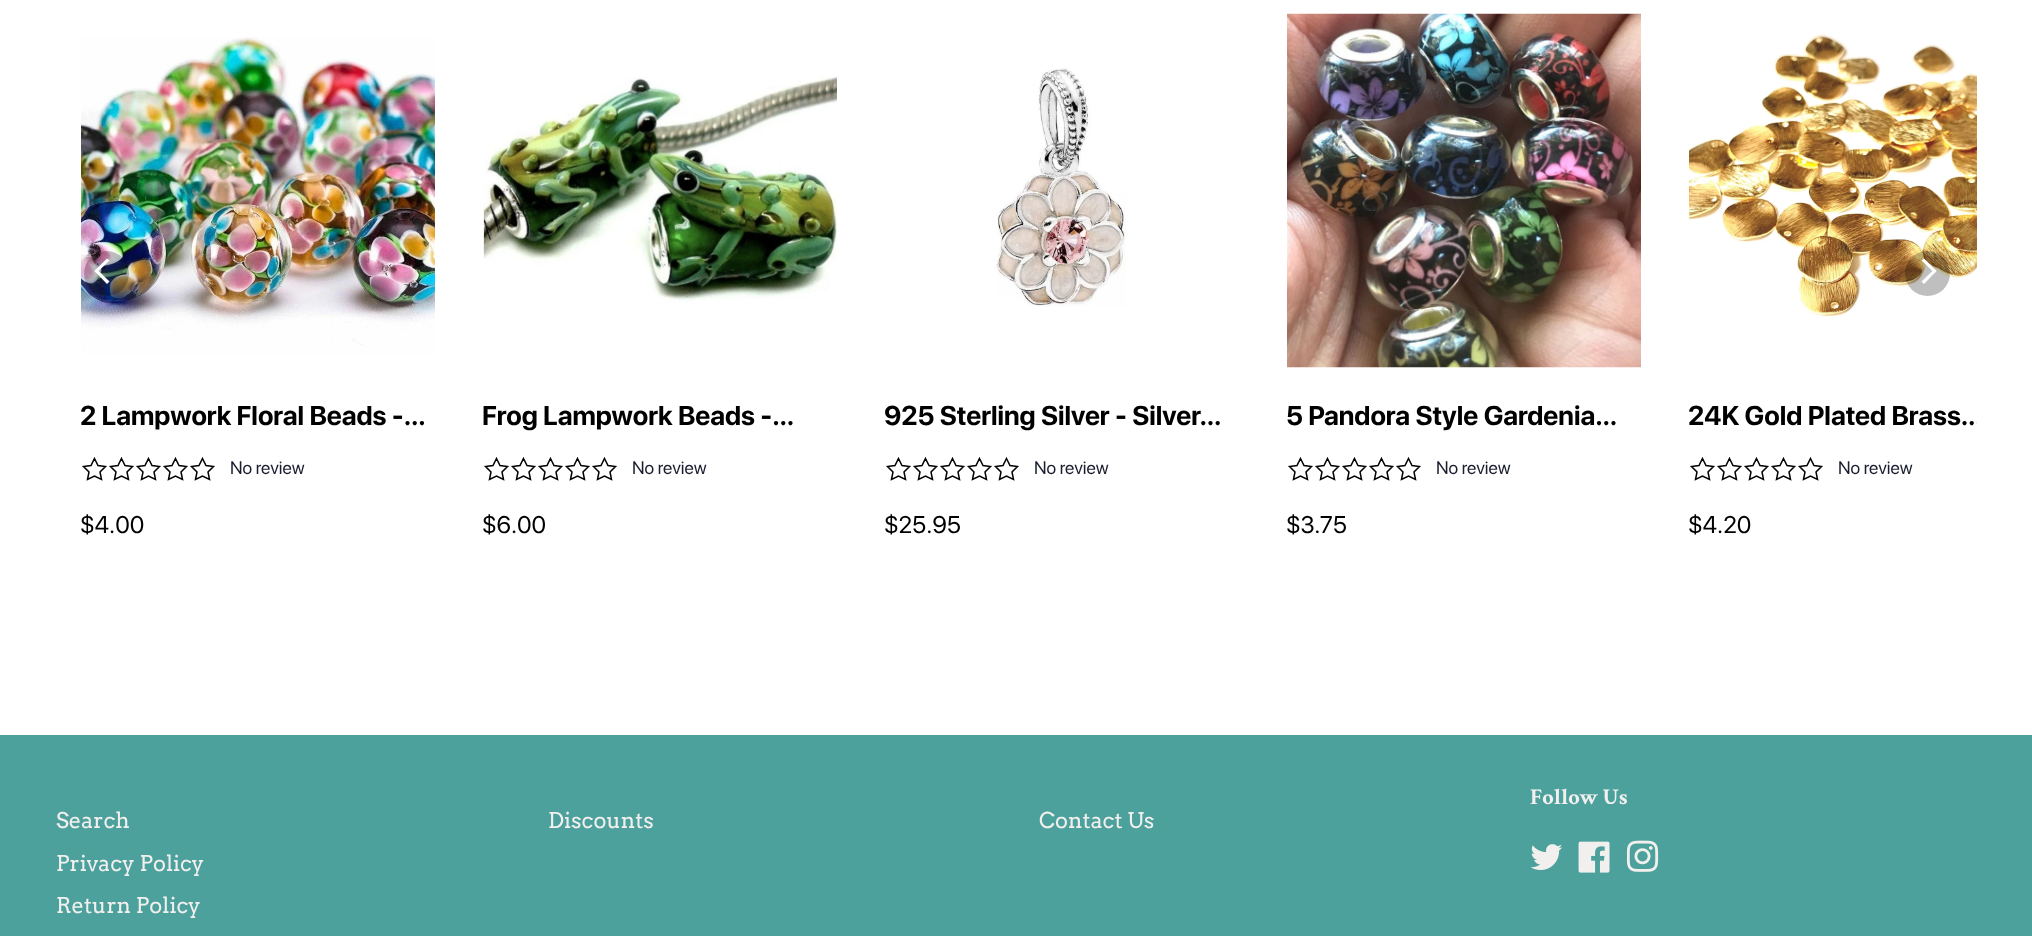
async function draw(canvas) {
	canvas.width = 2032;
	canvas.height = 936;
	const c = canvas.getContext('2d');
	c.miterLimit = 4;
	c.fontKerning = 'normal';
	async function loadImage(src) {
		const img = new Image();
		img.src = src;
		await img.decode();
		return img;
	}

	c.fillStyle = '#fff';
	c.fillRect(0, 0, 2032, 936);
	c.drawImage(await loadImage('img1.png'), 81, 37, 354, 317);
	c.fillStyle = '#00000040';
	c.beginPath();
	c.arc(106.5, 273.5, 22.5, 0, 2 * Math.PI);
	c.fill();
	c.fillStyle = '#fff';
	c.beginPath();
	c.moveTo(96.5, 269);
	c.lineTo(109.5, 281.5);
	c.lineTo(107, 284);
	c.lineTo(94.5, 271);
	c.closePath();
	c.fill();
	c.beginPath();
	c.moveTo(107, 258.5);
	c.lineTo(109.5, 260.5);
	c.lineTo(96.5, 273);
	c.lineTo(94.5, 271);
	c.closePath();
	c.fill();
	c.drawImage(await loadImage('img5.png'), 1689, 34, 288, 283);
	c.fillStyle = '#00000040';
	c.beginPath();
	c.arc(1927.5, 273.5, 22.5, 0, 2 * Math.PI);
	c.fill();
	c.fillStyle = '#fff';
	c.beginPath();
	c.moveTo(1934.5, 273);
	c.lineTo(1921.5, 260.5);
	c.lineTo(1924, 258.5);
	c.lineTo(1936.5, 271);
	c.closePath();
	c.fill();
	c.beginPath();
	c.moveTo(1924, 284);
	c.lineTo(1921.5, 281.5);
	c.lineTo(1934.5, 269);
	c.lineTo(1936.5, 271);
	c.closePath();
	c.fill();
	c.font = 'bold 27px SF Pro Display';
	c.fillStyle = '#000';
	c.fillText('2 Lampwork Floral Beads -…', 80, 425);
	c.beginPath();
	c.moveTo(94.5, 458.5);
	c.lineTo(98, 465.5);
	c.lineTo(105.5, 466.5);
	c.lineTo(100, 472);
	c.lineTo(101.5, 479.5);
	c.lineTo(94.5, 476);
	c.lineTo(87.5, 479.5);
	c.lineTo(89, 472);
	c.lineTo(83.5, 466.5);
	c.lineTo(91, 465.5);
	c.closePath();
	c.moveTo(121.5, 458.5);
	c.lineTo(125, 465.5);
	c.lineTo(132.5, 466.5);
	c.lineTo(127, 472);
	c.lineTo(128.5, 479.5);
	c.lineTo(121.5, 476);
	c.lineTo(114.5, 479.5);
	c.lineTo(116, 472);
	c.lineTo(110.5, 466.5);
	c.lineTo(118, 465.5);
	c.closePath();
	c.strokeStyle = '#000';
	c.lineWidth = 1.5;
	c.stroke();
	c.beginPath();
	c.moveTo(148.5, 458.5);
	c.lineTo(152, 465.5);
	c.lineTo(159.5, 466.5);
	c.lineTo(154, 472);
	c.lineTo(155.5, 479.5);
	c.lineTo(148.5, 476);
	c.lineTo(141.5, 479.5);
	c.lineTo(143, 472);
	c.lineTo(137.5, 466.5);
	c.lineTo(145, 465.5);
	c.closePath();
	c.moveTo(175.5, 458.5);
	c.lineTo(179, 465.5);
	c.lineTo(186.5, 466.5);
	c.lineTo(181, 472);
	c.lineTo(182.5, 479.5);
	c.lineTo(175.5, 476);
	c.lineTo(168.5, 479.5);
	c.lineTo(170, 472);
	c.lineTo(164.5, 466.5);
	c.lineTo(172, 465.5);
	c.closePath();
	c.stroke();
	c.beginPath();
	c.moveTo(202.5, 458.5);
	c.lineTo(206, 465.5);
	c.lineTo(213.5, 466.5);
	c.lineTo(208, 472);
	c.lineTo(209.5, 479.5);
	c.lineTo(202.5, 476);
	c.lineTo(195.5, 479.5);
	c.lineTo(197, 472);
	c.lineTo(191.5, 466.5);
	c.lineTo(199, 465.5);
	c.closePath();
	c.stroke();
	c.font = '18px SF Pro Display';
	c.fillStyle = '#1b1e2f';
	c.fillText('No review', 230, 474);
	c.font = '24px SF Pro Display';
	c.fillStyle = '#000';
	c.fillText('$4.00', 80, 533);
	c.drawImage(await loadImage('img2.png'), 483, 76, 354, 226);
	c.font = 'bold 27px SF Pro Display';
	c.fillText('Frog Lampwork Beads -…', 482, 425);
	c.beginPath();
	c.moveTo(496.5, 458.5);
	c.lineTo(500, 465.5);
	c.lineTo(507.5, 466.5);
	c.lineTo(502, 472);
	c.lineTo(503.5, 479.5);
	c.lineTo(496.5, 476);
	c.lineTo(489.5, 479.5);
	c.lineTo(491, 472);
	c.lineTo(485.5, 466.5);
	c.lineTo(493, 465.5);
	c.closePath();
	c.moveTo(523.5, 458.5);
	c.lineTo(527, 465.5);
	c.lineTo(534.5, 466.5);
	c.lineTo(529, 472);
	c.lineTo(530.5, 479.5);
	c.lineTo(523.5, 476);
	c.lineTo(516.5, 479.5);
	c.lineTo(518, 472);
	c.lineTo(512.5, 466.5);
	c.lineTo(520, 465.5);
	c.closePath();
	c.stroke();
	c.beginPath();
	c.moveTo(550.5, 458.5);
	c.lineTo(554, 465.5);
	c.lineTo(561.5, 466.5);
	c.lineTo(556, 472);
	c.lineTo(557.5, 479.5);
	c.lineTo(550.5, 476);
	c.lineTo(543.5, 479.5);
	c.lineTo(545, 472);
	c.lineTo(539.5, 466.5);
	c.lineTo(547, 465.5);
	c.closePath();
	c.moveTo(577.5, 458.5);
	c.lineTo(581, 465.5);
	c.lineTo(588.5, 466.5);
	c.lineTo(583, 472);
	c.lineTo(584.5, 479.5);
	c.lineTo(577.5, 476);
	c.lineTo(570.5, 479.5);
	c.lineTo(572, 472);
	c.lineTo(566.5, 466.5);
	c.lineTo(574, 465.5);
	c.closePath();
	c.stroke();
	c.beginPath();
	c.moveTo(604.5, 458.5);
	c.lineTo(608, 465.5);
	c.lineTo(615.5, 466.5);
	c.lineTo(610, 472);
	c.lineTo(611.5, 479.5);
	c.lineTo(604.5, 476);
	c.lineTo(597.5, 479.5);
	c.lineTo(599, 472);
	c.lineTo(593.5, 466.5);
	c.lineTo(601, 465.5);
	c.closePath();
	c.stroke();
	c.font = '18px SF Pro Display';
	c.fillStyle = '#1b1e2f';
	c.fillText('No review', 632, 474);
	c.font = '24px SF Pro Display';
	c.fillStyle = '#000';
	c.fillText('$6.00', 482, 533);
	c.drawImage(await loadImage('img3.png'), 996, 68, 130, 239);
	c.font = 'bold 27px SF Pro Display';
	c.fillText('925 Sterling Silver - Silver…', 884, 425);
	c.beginPath();
	c.moveTo(898.5, 458.5);
	c.lineTo(902, 465.5);
	c.lineTo(909.5, 466.5);
	c.lineTo(904, 472);
	c.lineTo(905.5, 479.5);
	c.lineTo(898.5, 476);
	c.lineTo(891.5, 479.5);
	c.lineTo(893, 472);
	c.lineTo(887.5, 466.5);
	c.lineTo(895, 465.5);
	c.closePath();
	c.moveTo(925.5, 458.5);
	c.lineTo(929, 465.5);
	c.lineTo(936.5, 466.5);
	c.lineTo(931, 472);
	c.lineTo(932.5, 479.5);
	c.lineTo(925.5, 476);
	c.lineTo(918.5, 479.5);
	c.lineTo(920, 472);
	c.lineTo(914.5, 466.5);
	c.lineTo(922, 465.5);
	c.closePath();
	c.stroke();
	c.beginPath();
	c.moveTo(952.5, 458.5);
	c.lineTo(956, 465.5);
	c.lineTo(963.5, 466.5);
	c.lineTo(958, 472);
	c.lineTo(959.5, 479.5);
	c.lineTo(952.5, 476);
	c.lineTo(945.5, 479.5);
	c.lineTo(947, 472);
	c.lineTo(941.5, 466.5);
	c.lineTo(949, 465.5);
	c.closePath();
	c.moveTo(979.5, 458.5);
	c.lineTo(983, 465.5);
	c.lineTo(990.5, 466.5);
	c.lineTo(985, 472);
	c.lineTo(986.5, 479.5);
	c.lineTo(979.5, 476);
	c.lineTo(972.5, 479.5);
	c.lineTo(974, 472);
	c.lineTo(968.5, 466.5);
	c.lineTo(976, 465.5);
	c.closePath();
	c.stroke();
	c.beginPath();
	c.moveTo(1006.5, 458.5);
	c.lineTo(1010, 465.5);
	c.lineTo(1017.5, 466.5);
	c.lineTo(1012, 472);
	c.lineTo(1013.5, 479.5);
	c.lineTo(1006.5, 476);
	c.lineTo(999.5, 479.5);
	c.lineTo(1001, 472);
	c.lineTo(995.5, 466.5);
	c.lineTo(1003, 465.5);
	c.closePath();
	c.stroke();
	c.font = '18px SF Pro Display';
	c.fillStyle = '#1b1e2f';
	c.fillText('No review', 1034, 474);
	c.font = '24px SF Pro Display';
	c.fillStyle = '#000';
	c.fillText('$25.95', 884, 533);
	c.drawImage(await loadImage('img4.png'), 1287, 13, 354, 355);
	c.font = 'bold 27px SF Pro Display';
	c.fillText('5 Pandora Style Gardenia…', 1286, 425);
	c.beginPath();
	c.moveTo(1300.5, 458.5);
	c.lineTo(1304, 465.5);
	c.lineTo(1311.5, 466.5);
	c.lineTo(1306, 472);
	c.lineTo(1307.5, 479.5);
	c.lineTo(1300.5, 476);
	c.lineTo(1293.5, 479.5);
	c.lineTo(1295, 472);
	c.lineTo(1289.5, 466.5);
	c.lineTo(1297, 465.5);
	c.closePath();
	c.moveTo(1327.5, 458.5);
	c.lineTo(1331, 465.5);
	c.lineTo(1338.5, 466.5);
	c.lineTo(1333, 472);
	c.lineTo(1334.5, 479.5);
	c.lineTo(1327.5, 476);
	c.lineTo(1320.5, 479.5);
	c.lineTo(1322, 472);
	c.lineTo(1316.5, 466.5);
	c.lineTo(1324, 465.5);
	c.closePath();
	c.stroke();
	c.beginPath();
	c.moveTo(1354.5, 458.5);
	c.lineTo(1358, 465.5);
	c.lineTo(1365.5, 466.5);
	c.lineTo(1360, 472);
	c.lineTo(1361.5, 479.5);
	c.lineTo(1354.5, 476);
	c.lineTo(1347.5, 479.5);
	c.lineTo(1349, 472);
	c.lineTo(1343.5, 466.5);
	c.lineTo(1351, 465.5);
	c.closePath();
	c.moveTo(1381.5, 458.5);
	c.lineTo(1385, 465.5);
	c.lineTo(1392.5, 466.5);
	c.lineTo(1387, 472);
	c.lineTo(1388.5, 479.5);
	c.lineTo(1381.5, 476);
	c.lineTo(1374.5, 479.5);
	c.lineTo(1376, 472);
	c.lineTo(1370.5, 466.5);
	c.lineTo(1378, 465.5);
	c.closePath();
	c.stroke();
	c.beginPath();
	c.moveTo(1408.5, 458.5);
	c.lineTo(1412, 465.5);
	c.lineTo(1419.5, 466.5);
	c.lineTo(1414, 472);
	c.lineTo(1415.5, 479.5);
	c.lineTo(1408.5, 476);
	c.lineTo(1401.5, 479.5);
	c.lineTo(1403, 472);
	c.lineTo(1397.5, 466.5);
	c.lineTo(1405, 465.5);
	c.closePath();
	c.stroke();
	c.font = '18px SF Pro Display';
	c.fillStyle = '#1b1e2f';
	c.fillText('No review', 1436, 474);
	c.font = '24px SF Pro Display';
	c.fillStyle = '#000';
	c.fillText('$3.75', 1286, 533);
	c.save();
	c.beginPath();
	c.rect(1689, 398, 288, 37);
	c.clip();
	c.font = 'bold 27px SF Pro Display';
	c.fillText('24K Gold Plated Brass…', 1688, 425);
	c.restore();
	c.beginPath();
	c.moveTo(1702.5, 458.5);
	c.lineTo(1706, 465.5);
	c.lineTo(1713.5, 466.5);
	c.lineTo(1708, 472);
	c.lineTo(1709.5, 479.5);
	c.lineTo(1702.5, 476);
	c.lineTo(1695.5, 479.5);
	c.lineTo(1697, 472);
	c.lineTo(1691.5, 466.5);
	c.lineTo(1699, 465.5);
	c.closePath();
	c.moveTo(1729.5, 458.5);
	c.lineTo(1733, 465.5);
	c.lineTo(1740.5, 466.5);
	c.lineTo(1735, 472);
	c.lineTo(1736.5, 479.5);
	c.lineTo(1729.5, 476);
	c.lineTo(1722.5, 479.5);
	c.lineTo(1724, 472);
	c.lineTo(1718.5, 466.5);
	c.lineTo(1726, 465.5);
	c.closePath();
	c.stroke();
	c.beginPath();
	c.moveTo(1756.5, 458.5);
	c.lineTo(1760, 465.5);
	c.lineTo(1767.5, 466.5);
	c.lineTo(1762, 472);
	c.lineTo(1763.5, 479.5);
	c.lineTo(1756.5, 476);
	c.lineTo(1749.5, 479.5);
	c.lineTo(1751, 472);
	c.lineTo(1745.5, 466.5);
	c.lineTo(1753, 465.5);
	c.closePath();
	c.moveTo(1783.5, 458.5);
	c.lineTo(1787, 465.5);
	c.lineTo(1794.5, 466.5);
	c.lineTo(1789, 472);
	c.lineTo(1790.5, 479.5);
	c.lineTo(1783.5, 476);
	c.lineTo(1776.5, 479.5);
	c.lineTo(1778, 472);
	c.lineTo(1772.5, 466.5);
	c.lineTo(1780, 465.5);
	c.closePath();
	c.stroke();
	c.beginPath();
	c.moveTo(1810.5, 458.5);
	c.lineTo(1814, 465.5);
	c.lineTo(1821.5, 466.5);
	c.lineTo(1816, 472);
	c.lineTo(1817.5, 479.5);
	c.lineTo(1810.5, 476);
	c.lineTo(1803.5, 479.5);
	c.lineTo(1805, 472);
	c.lineTo(1799.5, 466.5);
	c.lineTo(1807, 465.5);
	c.closePath();
	c.stroke();
	c.font = '18px SF Pro Display';
	c.fillStyle = '#1b1e2f';
	c.fillText('No review', 1838, 474);
	c.font = '24px SF Pro Display';
	c.fillStyle = '#000';
	c.fillText('$4.20', 1688, 533);
	c.fillStyle = '#4da19d';
	c.fillRect(0, 735, 2032, 201);
	c.font = 'bold 22.5px Crimson Text';
	c.fillStyle = '#f2f0ee';
	c.fillText('Follow Us', 1530, 804);
	c.drawImage(await loadImage('img6.png'), 1530, 844, 32, 26);
	c.drawImage(await loadImage('img7.png'), 1578, 841, 32, 32);
	c.drawImage(await loadImage('img8.png'), 1626, 840, 33, 32);
	c.font = '21.75px Arvo';
	for (const [text, x, y] of [
		['Search', 56, 828],
		['Privacy Policy', 56, 871],
		['Return Policy', 56, 913],
		['Discounts', 548, 828],
		['Contact Us', 1039, 828],
	]) {
		c.fillText(text, x, y);
	}
}

draw(document.querySelector('canvas'));
